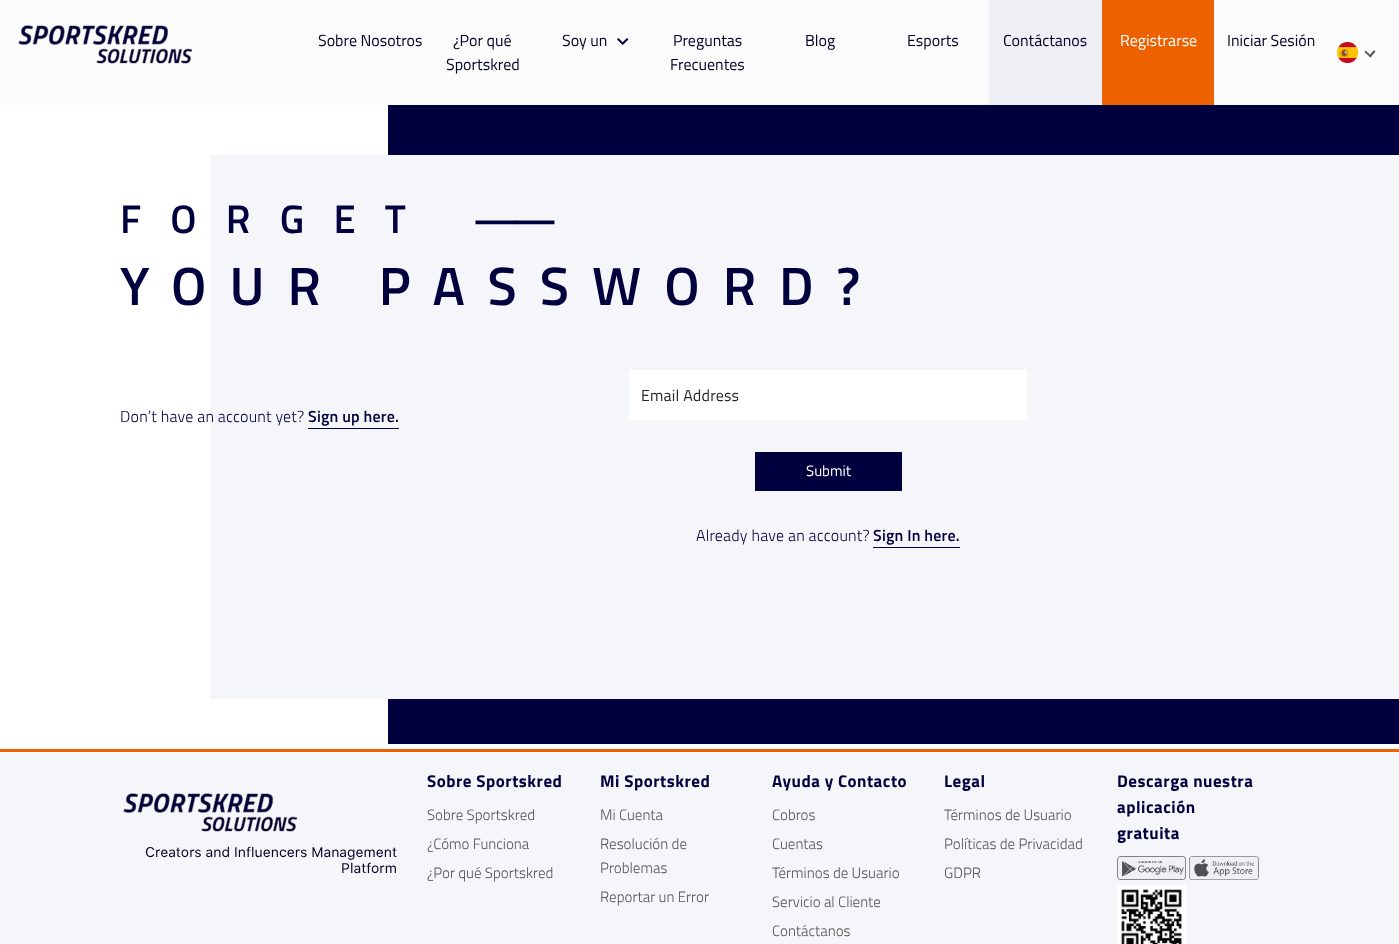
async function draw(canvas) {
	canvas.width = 1399;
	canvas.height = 944;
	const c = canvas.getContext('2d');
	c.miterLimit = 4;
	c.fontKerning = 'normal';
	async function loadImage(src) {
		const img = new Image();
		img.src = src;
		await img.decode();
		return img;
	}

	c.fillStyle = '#fff';
	c.fillRect(0, 0, 1399, 944);
	c.fillStyle = '#fbfbfb';
	c.fillRect(0, 0, 1399, 105);
	c.drawImage(await loadImage('img1.png'), 18, 25, 175, 39);
	c.font = '16px Titillium Web';
	c.fillStyle = '#000025';
	for (const [text, x, y] of [
		['Sobre Nosotros', 318, 46],
		['¿Por qué', 453, 46],
		['Sportskred', 446, 70],
		['Soy un', 562, 46],
	]) {
		c.fillText(text, x, y);
	}
	c.drawImage(await loadImage('img2.png'), 617, 38, 12, 7);
	for (const [text, x, y] of [
		['Preguntas', 673, 46],
		['Frecuentes', 670, 70],
		['Blog', 805, 46],
		['Esports', 907, 46],
	]) {
		c.fillText(text, x, y);
	}
	c.fillStyle = '#eff0f5';
	c.fillRect(989, 0, 113, 105);
	c.fillStyle = '#000025';
	c.fillText('Contáctanos', 1003, 46);
	c.fillStyle = '#ed6100';
	c.fillRect(1102, 0, 112, 105);
	c.fillStyle = '#fff';
	c.fillText('Registrarse', 1120, 46);
	c.fillStyle = '#000025';
	c.fillText('Iniciar Sesión', 1227, 46);
	c.drawImage(await loadImage('img3.png'), 1337, 42, 21, 21);
	c.fillStyle = '#545454';
	c.beginPath();
	c.moveTo(1375.5, 51.5);
	c.lineTo(1370.5, 57.5);
	c.lineTo(1369, 56);
	c.lineTo(1374, 50);
	c.closePath();
	c.fill();
	c.beginPath();
	c.moveTo(1371.5, 56);
	c.lineTo(1370.5, 57.5);
	c.lineTo(1364.5, 52);
	c.lineTo(1365.5, 50.5);
	c.closePath();
	c.fill();
	c.fillStyle = '#00003f';
	c.fillRect(388, 105, 1011, 639);
	c.fillStyle = '#f5f6f9';
	c.fillRect(210, 155, 1189, 544);
	c.letterSpacing = '29.25px';
	c.font = '600 40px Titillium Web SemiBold';
	c.fillStyle = '#00003f';
	c.fillText('FORGET', 120, 233);
	c.letterSpacing = '-6px';
	c.fillText('——', 473, 233);
	c.letterSpacing = '23px';
	c.font = '600 54px Titillium Web SemiBold';
	c.fillText('YOUR PASSWORD?', 120, 305);
	c.letterSpacing = '0.2px';
	c.font = '300 16px Titillium Web';
	c.fillText('Don’t have an account yet?', 120, 422);
	c.font = '600 16px Titillium Web SemiBold';
	c.fillText('Sign up here.', 308, 422);
	c.fillRect(308, 428, 91, 1);
	c.fillStyle = '#fff';
	c.fillRect(629, 370, 398, 50);
	c.font = '16px Titillium Web';
	c.fillStyle = '#25292b';
	c.fillText('Email Address', 641, 401);
	c.fillStyle = '#00003f';
	c.fillRect(755, 452, 147, 39);
	c.letterSpacing = '0px';
	c.font = '15px Titillium Web';
	c.fillStyle = '#fff';
	c.fillText('Submit', 806, 476);
	c.letterSpacing = '0.2px';
	c.font = '300 16px Titillium Web';
	c.fillStyle = '#00003f';
	c.fillText('Already have an account?', 696, 541);
	c.font = '600 16px Titillium Web SemiBold';
	c.fillText('Sign In here.', 873, 541);
	for (const [x, y, w, h, color] of [
		[873, 547, 87, 1, '#00003f'],
		[0, 752, 1399, 192, '#f5f6f9'],
		[0, 749, 1399, 3, '#ed6100'],
	]) {
		c.fillStyle = color;
		c.fillRect(x, y, w, h);
	}
	c.letterSpacing = '0.5px';
	c.font = 'bold 17px Titillium Web';
	c.fillStyle = '#00003f';
	c.fillText('Sobre Sportskred', 427, 787);
	c.letterSpacing = '0px';
	c.font = '300 15px Titillium Web';
	c.fillStyle = '#545454';
	for (const [text, x, y] of [
		['Sobre Sportskred', 427, 820],
		['¿Cómo Funciona', 427, 849],
		['¿Por qué Sportskred', 427, 878],
	]) {
		c.fillText(text, x, y);
	}
	c.letterSpacing = '0.5px';
	c.font = 'bold 17px Titillium Web';
	c.fillStyle = '#00003f';
	c.fillText('Mi Sportskred', 600, 787);
	c.letterSpacing = '0px';
	c.font = '300 15px Titillium Web';
	c.fillStyle = '#545454';
	for (const [text, x, y] of [
		['Mi Cuenta', 600, 820],
		['Resolución de', 600, 849],
		['Problemas', 600, 873],
		['Reportar un Error', 600, 902],
	]) {
		c.fillText(text, x, y);
	}
	c.letterSpacing = '0.5px';
	c.font = 'bold 17px Titillium Web';
	c.fillStyle = '#00003f';
	c.fillText('Ayuda y Contacto', 772, 787);
	c.letterSpacing = '0px';
	c.font = '300 15px Titillium Web';
	c.fillStyle = '#545454';
	for (const [text, x, y] of [
		['Cobros', 772, 820],
		['Cuentas', 772, 849],
		['Términos de Usuario', 772, 878],
		['Servicio al Cliente', 772, 907],
		['Contáctanos', 772, 936],
	]) {
		c.fillText(text, x, y);
	}
	c.letterSpacing = '0.5px';
	c.font = 'bold 17px Titillium Web';
	c.fillStyle = '#00003f';
	c.fillText('Legal', 944, 787);
	c.letterSpacing = '0px';
	c.font = '300 15px Titillium Web';
	c.fillStyle = '#545454';
	for (const [text, x, y] of [
		['Términos de Usuario', 944, 820],
		['Políticas de Privacidad', 944, 849],
		['GDPR', 944, 878],
	]) {
		c.fillText(text, x, y);
	}
	c.letterSpacing = '0.5px';
	c.font = 'bold 17px Titillium Web';
	c.fillStyle = '#00003f';
	for (const [text, x, y] of [
		['Descarga nuestra', 1117, 787],
		['aplicación', 1117, 813],
		['gratuita', 1117, 839],
	]) {
		c.fillText(text, x, y);
	}
	c.drawImage(await loadImage('img4.png'), 1117, 856, 69, 24);
	c.drawImage(await loadImage('img5.png'), 1189, 856, 70, 24);
	c.drawImage(await loadImage('img6.png'), 1117, 885, 69, 59);
	c.drawImage(await loadImage('img7.png'), 123, 793, 175, 39);
	c.letterSpacing = '0px';
	c.font = '14px SF Pro Text';
	c.fillStyle = '#000025';
	c.fillText('Creators and Influencers Management', 145, 857);
	c.fillText('Platform', 341, 873);
}

draw(document.querySelector('canvas'));
